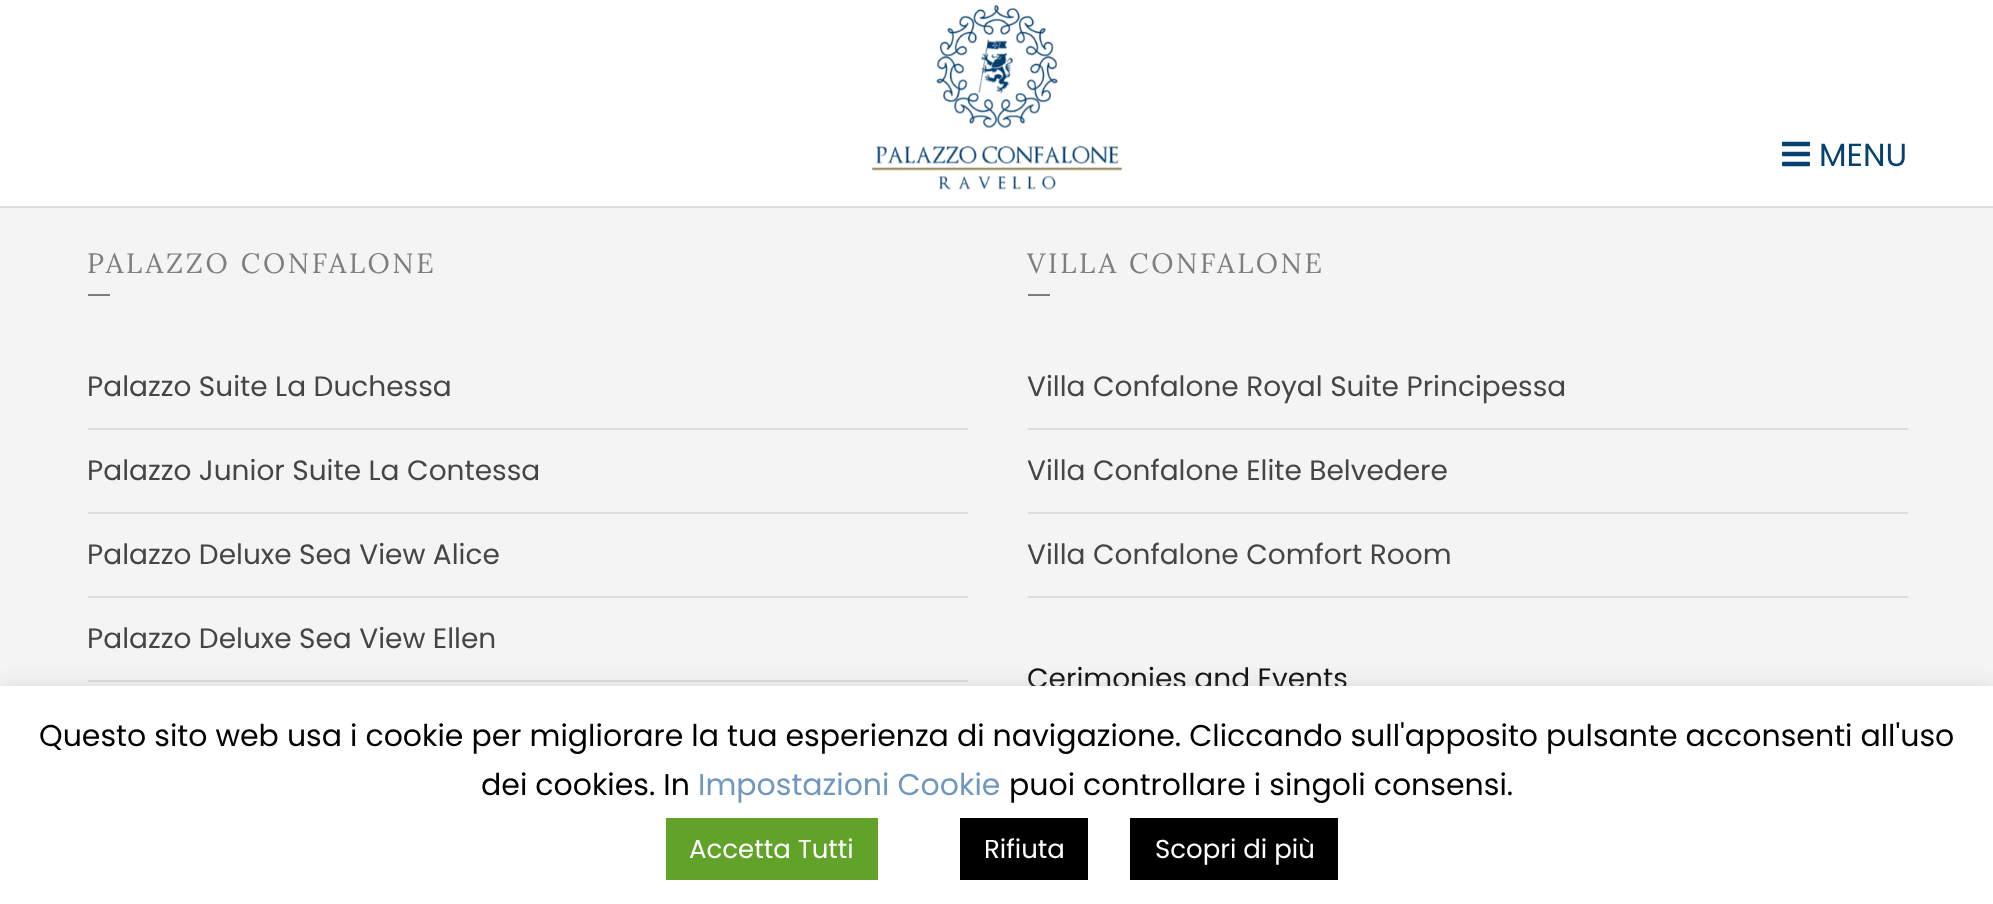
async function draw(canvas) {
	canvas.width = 1993;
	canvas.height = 904;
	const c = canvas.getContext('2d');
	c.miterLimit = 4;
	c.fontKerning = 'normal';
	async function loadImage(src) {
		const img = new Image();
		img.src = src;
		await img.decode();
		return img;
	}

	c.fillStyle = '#f4f4f4';
	c.fillRect(0, 0, 1993, 904);
	c.fillStyle = '#fff';
	c.fillRect(0, 0, 1993, 206);
	c.fillStyle = '#ddd';
	c.fillRect(0, 206, 1993, 2);
	c.drawImage(await loadImage('img1.png'), 872, 4, 250, 186);
	c.drawImage(await loadImage('img2.png'), 1782, 141, 28, 26);
	c.font = '32px Poppins';
	c.fillStyle = '#064271';
	c.fillText('MENU', 1819, 166);
	c.letterSpacing = '2.75px';
	c.font = '28px Lora';
	c.fillStyle = '#7e7e7e';
	c.fillText('PALAZZO CONFALONE', 87, 273);
	c.fillRect(88, 294, 22, 2);
	c.fillStyle = '#ddd';
	c.fillRect(88, 428, 880, 2);
	c.letterSpacing = '0px';
	c.font = '28px Poppins';
	c.fillStyle = '#454545';
	c.fillText('Palazzo Suite La Duchessa', 87, 396);
	c.fillStyle = '#ddd';
	c.fillRect(88, 512, 880, 2);
	c.fillStyle = '#454545';
	c.fillText('Palazzo Junior Suite La Contessa', 87, 480);
	c.fillStyle = '#ddd';
	c.fillRect(88, 596, 880, 2);
	c.fillStyle = '#454545';
	c.fillText('Palazzo Deluxe Sea View Alice', 87, 564);
	c.fillStyle = '#ddd';
	c.fillRect(88, 680, 880, 2);
	c.fillStyle = '#454545';
	c.fillText('Palazzo Deluxe Sea View Ellen', 87, 648);
	c.letterSpacing = '2.75px';
	c.font = '28px Lora';
	c.fillStyle = '#7e7e7e';
	c.fillText('VILLA CONFALONE', 1027, 273);
	c.fillRect(1028, 294, 22, 2);
	c.fillStyle = '#ddd';
	c.fillRect(1028, 428, 880, 2);
	c.letterSpacing = '0px';
	c.font = '28px Poppins';
	c.fillStyle = '#454545';
	c.fillText('Villa Confalone Royal Suite Principessa', 1027, 396);
	c.fillStyle = '#ddd';
	c.fillRect(1028, 512, 880, 2);
	c.fillStyle = '#454545';
	c.fillText('Villa Confalone Elite Belvedere', 1027, 480);
	c.fillStyle = '#ddd';
	c.fillRect(1028, 596, 880, 2);
	c.fillStyle = '#454545';
	c.fillText('Villa Confalone Comfort Room', 1027, 564);
	c.fillStyle = '#0d0d0d';
	c.fillText('Cerimonies and Events', 1027, 688);
	c.fillStyle = '#acabab4d';
	c.filter = 'blur(10px)';
	c.beginPath();
	c.rect(0, 684, 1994, 218);
	c.fill();
	c.filter = 'none';
	c.fillStyle = '#fff';
	c.fillRect(0, 686, 1993, 218);
	c.font = '30px Poppins';
	c.fillStyle = '#000';
	c.fillText('Questo sito web usa i cookie per migliorare la tua esperienza di navigazione. Cliccando sull\'apposito pulsante acconsenti all\'uso', 39, 746);
	c.fillText('dei cookies. In', 481, 795);
	c.fillStyle = '#7098bf';
	c.fillText('Impostazioni Cookie', 698, 795);
	c.fillStyle = '#000';
	c.fillText('puoi controllare i singoli consensi.', 1009, 795);
	c.fillStyle = '#61a229';
	c.fillRect(666, 818, 212, 62);
	c.font = '26px Poppins';
	c.fillStyle = '#fff';
	c.fillText('Accetta Tutti', 689, 858);
	c.fillStyle = '#000';
	c.fillRect(960, 818, 128, 62);
	c.fillStyle = '#fff';
	c.fillText('Rifiuta', 984, 858);
	c.fillStyle = '#000';
	c.fillRect(1130, 818, 208, 62);
	c.fillStyle = '#fff';
	c.fillText('Scopri di più', 1155, 858);
}

draw(document.querySelector('canvas'));
